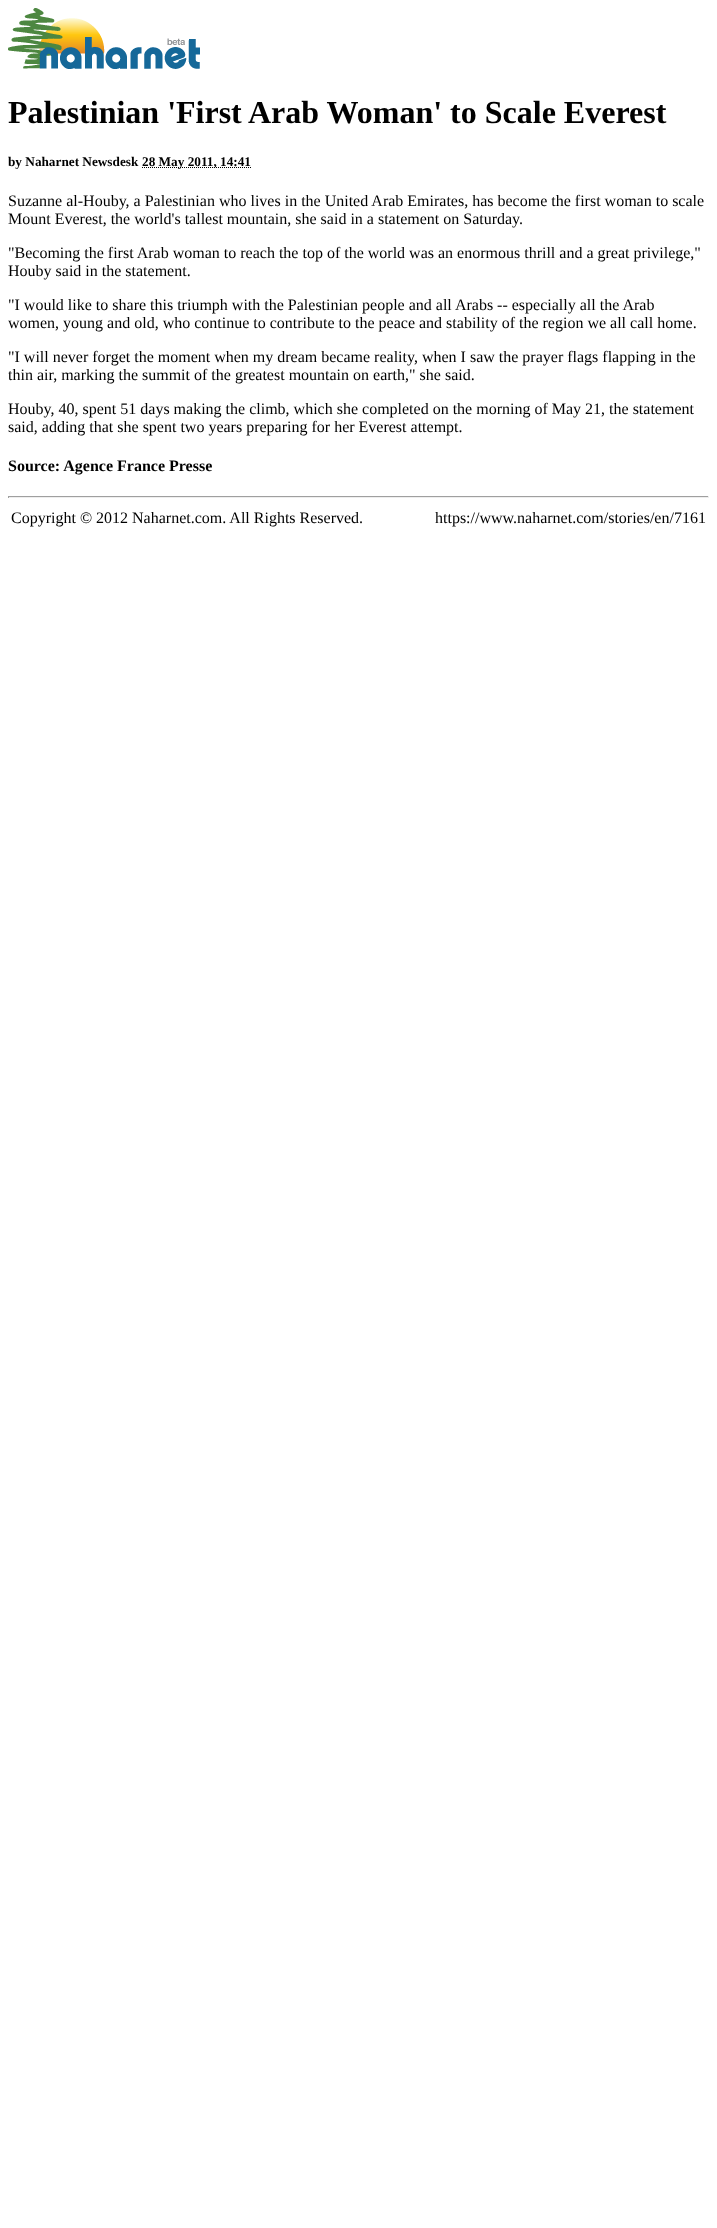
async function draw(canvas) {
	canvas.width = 717;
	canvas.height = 2228;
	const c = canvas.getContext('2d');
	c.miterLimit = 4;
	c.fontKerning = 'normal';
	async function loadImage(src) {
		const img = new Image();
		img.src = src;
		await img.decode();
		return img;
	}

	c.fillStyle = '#fff';
	c.fillRect(0, 0, 717, 2228);
	c.drawImage(await loadImage('img1.png'), 8, 8, 192, 61);
	c.font = 'bold 32px Liberation Serif';
	c.fillStyle = '#000';
	c.fillText('Palestinian \'First Arab Woman\' to Scale Everest', 8, 123);
	c.font = 'bold 13.25px Liberation Serif';
	c.fillText('by Naharnet Newsdesk', 8, 166);
	c.beginPath();
	c.moveTo(142, 167.5);
	c.lineTo(251, 167.5);
	c.strokeStyle = '#000';
	c.setLineDash([1, 1]);
	c.stroke();
	c.fillText('28 May 2011, 14:41', 142, 166);
	c.font = '16px Liberation Serif';
	for (const [text, x, y] of [
		['Suzanne al-Houby, a Palestinian who lives in the United Arab Emirates, has become the first woman to scale', 8, 206],
		['Mount Everest, the world\'s tallest mountain, she said in a statement on Saturday.', 8, 224],
		['"Becoming the first Arab woman to reach the top of the world was an enormous thrill and a great privilege,"', 8, 258],
		['Houby said in the statement.', 8, 276],
		['"I would like to share this triumph with the Palestinian people and all Arabs -- especially all the Arab', 8, 310],
		['women, young and old, who continue to contribute to the peace and stability of the region we all call home.', 8, 328],
		['"I will never forget the moment when my dream became reality, when I saw the prayer flags flapping in the', 8, 362],
		['thin air, marking the summit of the greatest mountain on earth," she said.', 8, 380],
		['Houby, 40, spent 51 days making the climb, which she completed on the morning of May 21, the statement', 8, 414],
		['said, adding that she spent two years preparing for her Everest attempt.', 8, 432],
	]) {
		c.fillText(text, x, y);
	}
	c.font = 'bold 16px Liberation Serif';
	c.fillText('Source: Agence France Presse', 8, 471);
	for (const [x, y, w, h, color] of [
		[8, 496, 701, 1, '#9f9f9f'],
		[708, 496, 1, 2, '#eee'],
		[8, 497, 701, 1, '#eee'],
		[8, 496, 1, 2, '#9f9f9f'],
	]) {
		c.fillStyle = color;
		c.fillRect(x, y, w, h);
	}
	c.font = '16px Liberation Serif';
	c.fillStyle = '#000';
	c.fillText('Copyright © 2012 Naharnet.com. All Rights Reserved.', 11, 523);
	c.fillText('https://www.naharnet.com/stories/en/7161', 435, 523);
}

draw(document.querySelector('canvas'));
